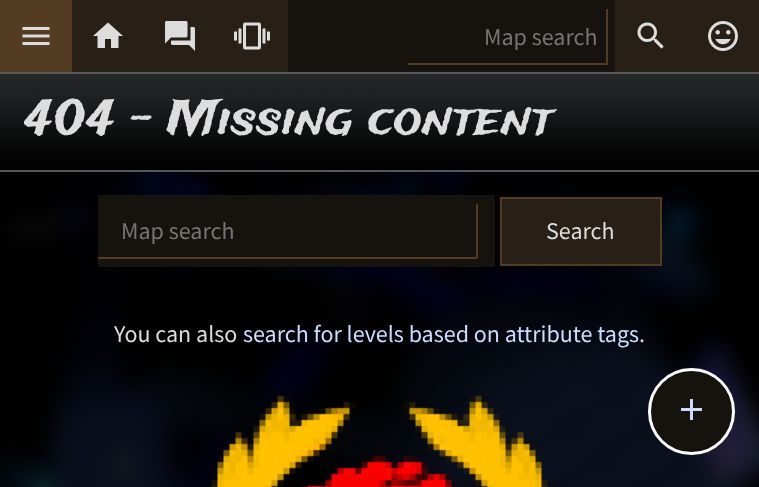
async function draw(canvas) {
	canvas.width = 759;
	canvas.height = 487;
	const c = canvas.getContext('2d');
	c.miterLimit = 4;
	c.fontKerning = 'normal';
	async function loadImage(src) {
		const img = new Image();
		img.src = src;
		await img.decode();
		return img;
	}

	c.fillStyle = '#fff';
	c.fillRect(0, 0, 759, 487);
	c.fillStyle = '#16130f';
	c.fillRect(288, 0, 327, 72);
	c.fillStyle = '#543c22';
	c.fillRect(0, 0, 72, 72);
	c.drawImage(await loadImage('img1.png'), 22, 27, 28, 18);
	c.fillStyle = '#282016';
	c.fillRect(72, 0, 216, 72);
	c.drawImage(await loadImage('img2.png'), 93, 22, 30, 26);
	c.fillRect(615, 0, 144, 72);
	c.drawImage(await loadImage('img3.png'), 637, 22, 27, 27);
	c.drawImage(await loadImage('img4.png'), 708, 21, 30, 30);
	c.drawImage(await loadImage('img5.png'), 165, 21, 30, 30);
	c.drawImage(await loadImage('img6.png'), 234, 22, 36, 28);
	c.fillStyle = '#543c22';
	c.fillRect(606, 9, 2, 56);
	c.fillRect(408, 63, 200, 2);
	c.font = '24px Source Sans Pro';
	c.fillStyle = '#757575';
	c.fillText('Map search', 484, 45);
	c.drawImage(await loadImage('img7.png'), 0, 74, 759, 96);
	c.fillStyle = '#56585d';
	c.fillRect(0, 72, 759, 2);
	c.fillRect(0, 170, 759, 2);
	c.save();
	c.beginPath();
	c.rect(24, 74, 735, 96);
	c.clip();
	c.font = '48px Trade Winds';
	c.fillStyle = '#ddd';
	c.fillText('404 - Missing content', 24, 134);
	c.restore();
	c.drawImage(await loadImage('img8.png'), 0, 172, 759, 315);
	for (const [x, y, w, h, color] of [
		[98, 195, 397, 72, '#16130f'],
		[476, 204, 2, 54, '#543c22'],
		[98, 257, 379, 2, '#543c22'],
	]) {
		c.fillStyle = color;
		c.fillRect(x, y, w, h);
	}
	c.fillStyle = '#757575';
	c.fillText('Map search', 121, 239);
	c.fillStyle = '#282016';
	c.beginPath();
	c.rect(501, 198, 160, 67);
	c.fill();
	c.strokeStyle = '#543c22';
	c.lineWidth = 2;
	c.stroke();
	c.fillStyle = '#ddd';
	c.fillText('Search', 546, 239);
	c.fillText('You can also', 114, 342);
	c.fillStyle = '#cdf';
	c.fillText('search for levels based on attribute tags', 243, 342);
	c.fillStyle = '#ddd';
	c.fillText('.', 639, 342);
	c.drawImage(await loadImage('img9.png'), 211, 395, 337, 92);
	c.fillStyle = '#16130f';
	c.beginPath();
	c.arc(691.5, 411.5, 42, 0, 2 * Math.PI);
	c.fill();
	c.strokeStyle = '#fff';
	c.lineWidth = 3;
	c.stroke();
	c.drawImage(await loadImage('img10.png'), 681, 399, 21, 21);
}

draw(document.querySelector('canvas'));
